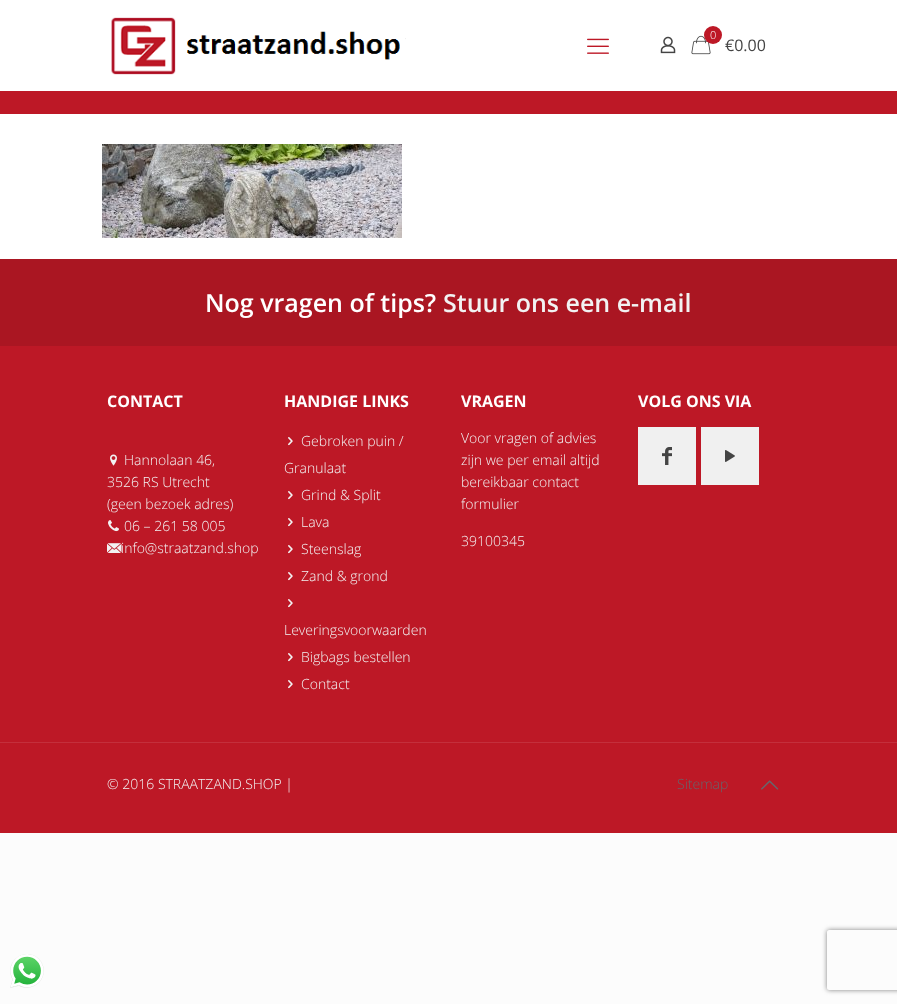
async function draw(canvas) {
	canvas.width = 897;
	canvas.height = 1004;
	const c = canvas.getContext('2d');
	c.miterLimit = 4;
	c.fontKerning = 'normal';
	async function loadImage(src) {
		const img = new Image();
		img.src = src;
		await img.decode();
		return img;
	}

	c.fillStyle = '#fcfcfc';
	c.fillRect(0, 0, 897, 1004);
	c.fillStyle = '#fff';
	c.fillRect(0, 114, 897, 145);
	c.fillRect(0, 0, 897, 91);
	c.drawImage(await loadImage('img1.png'), 111, 17, 295, 58);
	c.drawImage(await loadImage('img2.png'), 587, 38, 22, 16);
	c.drawImage(await loadImage('img3.png'), 660, 36, 16, 18);
	c.drawImage(await loadImage('img4.png'), 691, 35, 20, 20);
	c.fillStyle = '#bd1826';
	c.beginPath();
	c.arc(713, 35, 9, 0, 2 * Math.PI);
	c.fill();
	c.font = '300 11px Open Sans';
	c.fillStyle = '#fff';
	c.fillText('0', 710, 39);
	c.font = '16px Open Sans';
	c.fillStyle = '#444';
	c.fillText('€0.00', 725, 51);
	c.fillStyle = '#bd1826';
	c.fillRect(0, 91, 897, 23);
	c.drawImage(await loadImage('img5.png'), 102, 144, 300, 94);
	c.fillRect(0, 346, 897, 487);
	c.fillStyle = '#aa1622';
	c.fillRect(0, 259, 897, 87);
	c.font = '600 25px Open Sans';
	c.fillStyle = '#fff';
	c.fillText('Nog vragen of tips?', 205, 312);
	c.fillStyle = '#f2f2f2';
	c.fillText('Stuur ons een e-mail', 443, 312);
	c.font = 'bold 16px Open Sans';
	c.fillStyle = '#fff';
	c.fillText('CONTACT', 107, 407);
	c.drawImage(await loadImage('img6.png'), 110, 454, 7, 12);
	c.font = '300 14px Open Sans';
	c.fillStyle = '#f2f2f2';
	for (const [text, x, y] of [
		['Hannolaan 46,', 124, 465],
		['3526 RS Utrecht', 107, 487],
		['(geen bezoek adres)', 107, 509],
	]) {
		c.fillText(text, x, y);
	}
	c.drawImage(await loadImage('img7.png'), 108, 520, 11, 12);
	c.fillText('06 – 261 58 005', 124, 531);
	c.drawImage(await loadImage('img8.png'), 107, 543, 15, 10);
	c.fillText('info@straatzand.shop', 121, 553);
	c.font = 'bold 16px Open Sans';
	c.fillStyle = '#fff';
	c.fillText('HANDIGE LINKS', 284, 407);
	c.drawImage(await loadImage('img9.png'), 288, 437, 5, 9);
	c.font = '300 14px Open Sans';
	c.fillStyle = '#f2f2f2';
	c.fillText('Gebroken puin /', 301, 446);
	c.fillText('Granulaat', 284, 473);
	c.drawImage(await loadImage('img9.png'), 288, 491, 5, 9);
	c.fillText('Grind & Split', 301, 500);
	c.drawImage(await loadImage('img9.png'), 288, 518, 5, 9);
	c.fillText('Lava', 301, 527);
	c.drawImage(await loadImage('img9.png'), 288, 545, 5, 9);
	c.fillText('Steenslag', 301, 554);
	c.drawImage(await loadImage('img9.png'), 288, 572, 5, 9);
	c.fillText('Zand & grond', 301, 581);
	c.drawImage(await loadImage('img9.png'), 288, 599, 5, 9);
	c.fillText('Leveringsvoorwaarden', 284, 635);
	c.drawImage(await loadImage('img9.png'), 288, 653, 5, 9);
	c.fillText('Bigbags bestellen', 301, 662);
	c.drawImage(await loadImage('img9.png'), 288, 680, 5, 9);
	c.fillText('Contact', 301, 689);
	c.font = 'bold 16px Open Sans';
	c.fillStyle = '#fff';
	c.fillText('VRAGEN', 461, 407);
	c.font = '300 14px Open Sans';
	c.fillStyle = '#f2f2f2';
	for (const [text, x, y] of [
		['Voor vragen of advies', 461, 443],
		['zijn we per email altijd', 461, 465],
		['bereikbaar contact', 461, 487],
		['formulier', 461, 509],
		['39100345', 461, 546],
	]) {
		c.fillText(text, x, y);
	}
	c.font = 'bold 16px Open Sans';
	c.fillStyle = '#fff';
	c.fillText('VOLG ONS VIA', 638, 407);
	c.fillStyle = '#f0f0f0';
	c.fillRect(638, 427, 58, 58);
	c.drawImage(await loadImage('img10.png'), 662, 447, 10, 18);
	c.fillRect(701, 427, 58, 58);
	c.drawImage(await loadImage('img11.png'), 725, 450, 10, 12);
	c.fillStyle = '#c42f3c';
	c.fillRect(0, 742, 897, 1);
	c.font = '300 14px Open Sans';
	c.fillStyle = '#f2f2f2';
	c.fillText('© 2016 STRAATZAND.SHOP |', 107, 789);
	c.fillStyle = '#65666c';
	c.fillText('Sitemap', 677, 789);
	c.drawImage(await loadImage('img12.png'), 761, 780, 18, 10);
	c.drawImage(await loadImage('img13.png'), 10, 954, 34, 34);
	c.save();
	c.beginPath();
	c.moveTo(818, 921);
	c.lineTo(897, 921);
	c.lineTo(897, 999);
	c.lineTo(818, 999);
	c.closePath();
	c.moveTo(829, 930);
	c.lineTo(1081, 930);
	c.bezierCurveTo(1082, 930, 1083, 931, 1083, 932);
	c.lineTo(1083, 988);
	c.bezierCurveTo(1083, 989, 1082, 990, 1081, 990);
	c.lineTo(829, 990);
	c.bezierCurveTo(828, 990, 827, 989, 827, 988);
	c.lineTo(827, 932);
	c.bezierCurveTo(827, 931, 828, 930, 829, 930);
	c.closePath();
	c.clip('evenodd');
	c.fillStyle = '#808080';
	c.filter = 'blur(2.5px)';
	c.beginPath();
	c.roundRect(827, 930, 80, 60, 2);
	c.fill();
	c.filter = 'none';
	c.restore();
}

draw(document.querySelector('canvas'));
